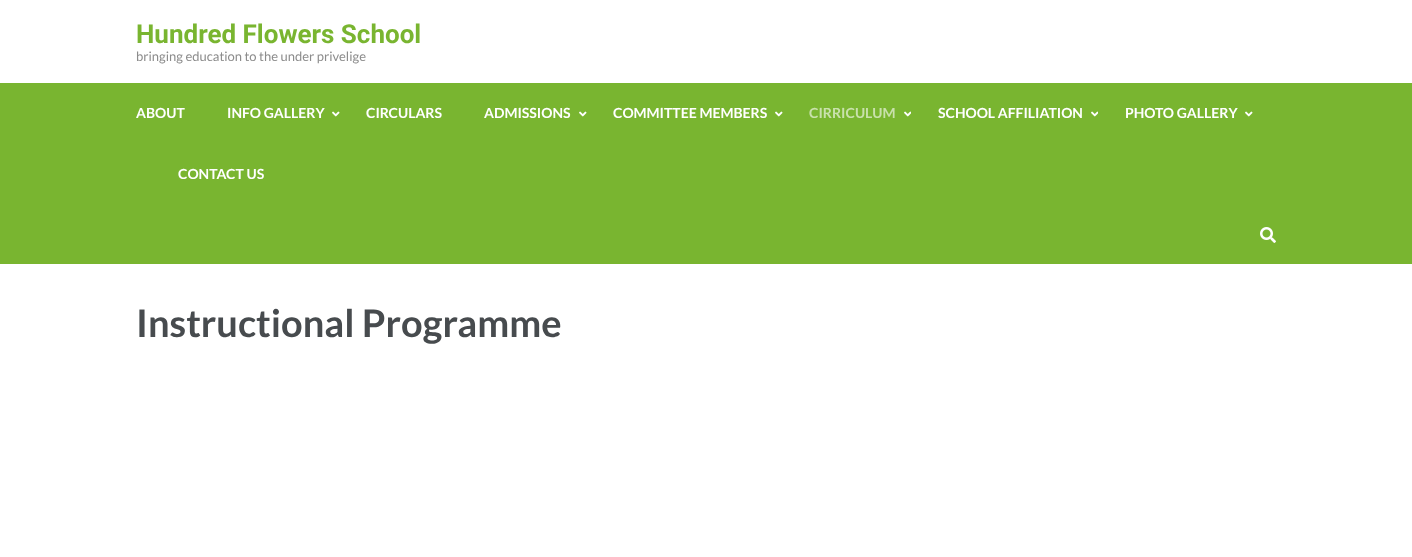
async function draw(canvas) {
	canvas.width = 1412;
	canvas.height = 557;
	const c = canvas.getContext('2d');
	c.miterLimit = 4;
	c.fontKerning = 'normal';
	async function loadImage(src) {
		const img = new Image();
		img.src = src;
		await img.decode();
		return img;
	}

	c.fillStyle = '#fff';
	c.fillRect(0, 0, 1412, 557);
	c.font = 'bold 26px Roboto';
	c.fillStyle = '#79b530';
	c.fillText('Hundred Flowers School', 136, 43);
	c.font = '13px Lato';
	c.fillStyle = '#8c8c8c';
	c.fillText('bringing education to the under privelige', 136, 61);
	c.fillStyle = '#79b530';
	c.fillRect(0, 83, 1412, 181);
	c.font = 'bold 14px Lato';
	c.fillStyle = '#fff';
	c.fillText('ABOUT', 136, 118);
	c.fillText('INFO GALLERY', 227, 118);
	c.drawImage(await loadImage('img1.png'), 332, 111, 8, 6);
	c.fillText('CIRCULARS', 366, 118);
	c.fillText('ADMISSIONS', 484, 118);
	c.drawImage(await loadImage('img1.png'), 579, 111, 8, 6);
	c.fillText('COMMITTEE MEMBERS', 613, 118);
	c.drawImage(await loadImage('img1.png'), 775, 111, 8, 6);
	c.fillStyle = '#c9e1ac';
	c.fillText('CIRRICULUM', 809, 118);
	c.drawImage(await loadImage('img2.png'), 904, 111, 7, 6);
	c.fillStyle = '#fff';
	c.fillText('SCHOOL AFFILIATION', 938, 118);
	c.drawImage(await loadImage('img2.png'), 1091, 111, 7, 6);
	c.fillText('PHOTO GALLERY', 1125, 118);
	c.drawImage(await loadImage('img1.png'), 1245, 111, 8, 6);
	c.fillText('CONTACT US', 178, 179);
	c.drawImage(await loadImage('img3.png'), 1260, 227, 16, 16);
	c.font = 'bold 38px Lato';
	c.fillStyle = '#474b4e';
	c.fillText('Instructional Programme', 136, 337);
}

draw(document.querySelector('canvas'));
